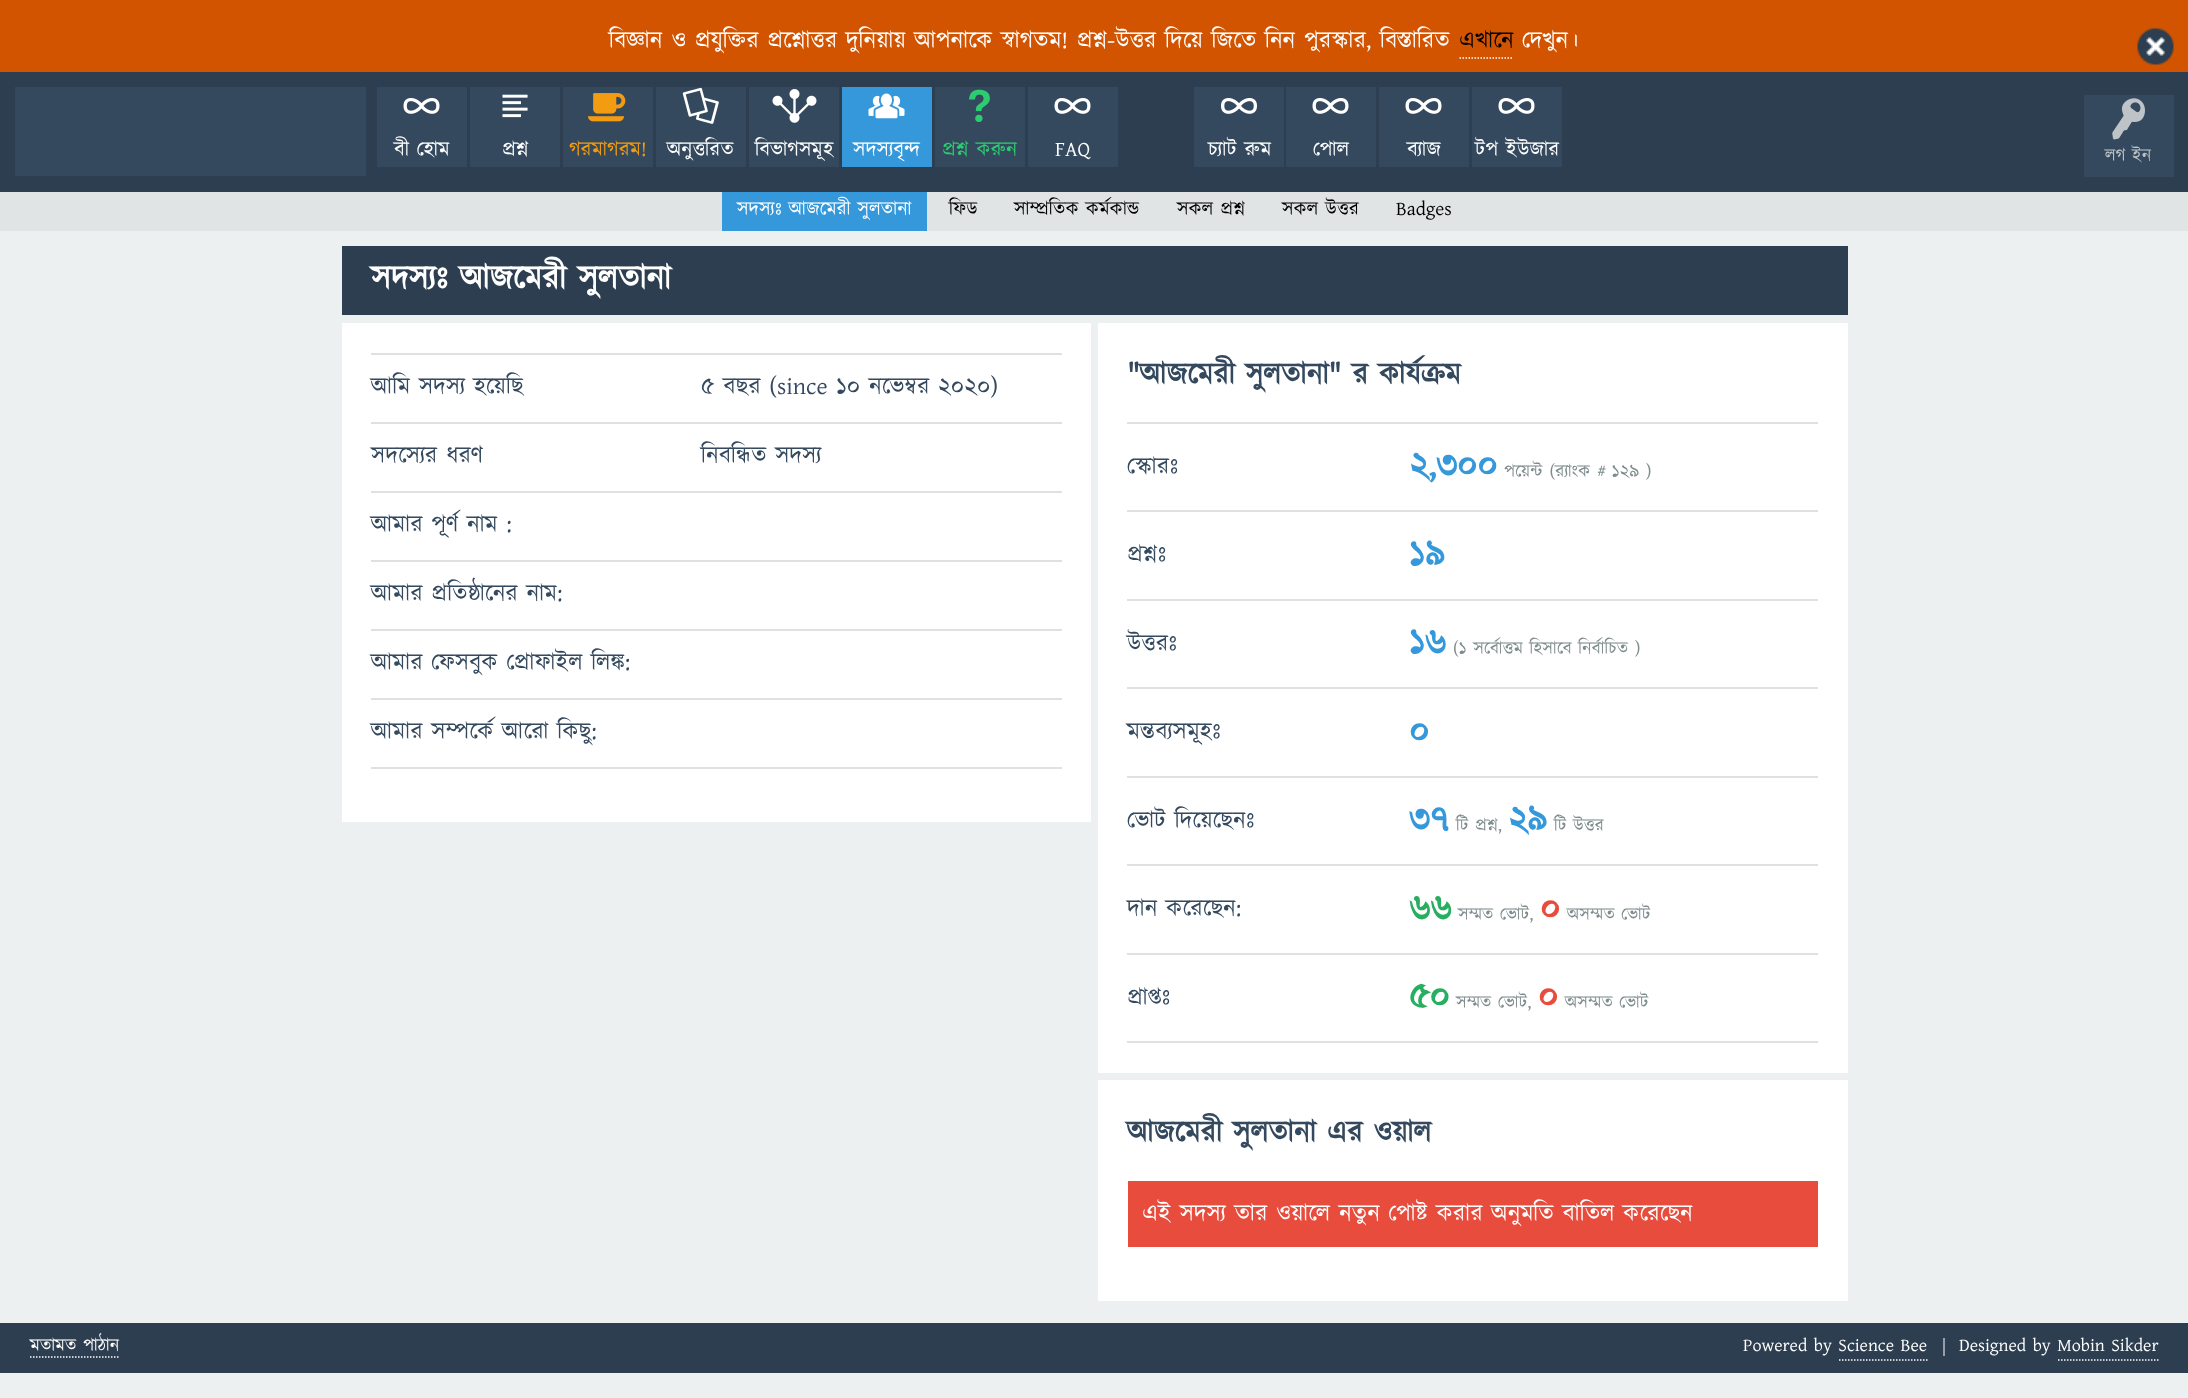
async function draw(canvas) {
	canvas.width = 2188;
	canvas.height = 1398;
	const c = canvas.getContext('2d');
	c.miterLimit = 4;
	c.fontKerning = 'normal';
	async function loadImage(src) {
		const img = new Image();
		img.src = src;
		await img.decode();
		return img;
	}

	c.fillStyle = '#ecf0f1';
	c.fillRect(0, 0, 2188, 1398);
	c.fillStyle = '#d35400';
	c.fillRect(0, 0, 2188, 72);
	c.font = '24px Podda';
	c.fillStyle = '#fff';
	c.fillText('বিজ্ঞান ও প্রযুক্তির প্রশ্নোত্তর দুনিয়ায় আপনাকে স্বাগতম! প্রশ্ন-উত্তর দিয়ে জিতে নিন পুরস্কার, বিস্তারিত', 609, 48);
	c.fillStyle = '#000';
	c.fillText('এখানে', 1459, 48);
	c.beginPath();
	c.moveTo(1459.5, 58);
	c.lineTo(1513.5, 58);
	c.strokeStyle = '#fff';
	c.lineWidth = 1.5;
	c.setLineDash([1.5, 1.5]);
	c.stroke();
	c.fillStyle = '#fff';
	c.fillText('দেখুন।', 1522, 48);
	c.drawImage(await loadImage('img1.png'), 2137, 28, 37, 37);
	for (const [x, y, w, h, color] of [
		[0, 72, 2188, 120, '#2c3e50'],
		[15, 87, 351, 89, '#34495e'],
		[377, 87, 90, 80, '#34495e'],
	]) {
		c.fillStyle = color;
		c.fillRect(x, y, w, h);
	}
	c.drawImage(await loadImage('img2.png'), 403, 98, 37, 16);
	c.font = '21px Podda';
	c.fillStyle = '#fff';
	c.fillText('বী হোম', 394, 156);
	c.fillStyle = '#34495e';
	c.fillRect(470, 87, 90, 80);
	c.drawImage(await loadImage('img3.png'), 502, 94, 26, 24);
	c.fillStyle = '#fff';
	c.fillText('প্রশ্ন', 502, 156);
	c.fillStyle = '#34495e';
	c.fillRect(563, 87, 90, 80);
	c.drawImage(await loadImage('img4.png'), 588, 93, 38, 29);
	c.fillStyle = '#f39c12';
	c.fillText('গরমাগরম!', 569, 156);
	c.fillStyle = '#34495e';
	c.fillRect(656, 87, 90, 80);
	c.drawImage(await loadImage('img5.png'), 682, 87, 37, 37);
	c.fillStyle = '#fff';
	c.fillText('অনুত্তরিত', 667, 156);
	c.fillStyle = '#34495e';
	c.fillRect(749, 87, 90, 80);
	c.drawImage(await loadImage('img6.png'), 772, 89, 45, 34);
	c.fillStyle = '#fff';
	c.fillText('বিভাগসমূহ', 755, 156);
	c.fillStyle = '#3498db';
	c.fillRect(842, 87, 90, 80);
	c.drawImage(await loadImage('img7.png'), 868, 93, 37, 26);
	c.fillStyle = '#fff';
	c.fillText('সদস্যবৃন্দ', 853, 156);
	c.fillStyle = '#34495e';
	c.fillRect(935, 87, 90, 80);
	c.drawImage(await loadImage('img8.png'), 969, 89, 21, 33);
	c.fillStyle = '#2ecc71';
	c.fillText('প্রশ্ন করুন', 942, 156);
	c.fillStyle = '#34495e';
	c.fillRect(1028, 87, 90, 80);
	c.drawImage(await loadImage('img2.png'), 1054, 98, 37, 16);
	c.fillStyle = '#fff';
	c.fillText('FAQ', 1055, 156);
	c.fillStyle = '#34495e';
	c.fillRect(1194, 87, 90, 80);
	c.drawImage(await loadImage('img9.png'), 1221, 98, 36, 16);
	c.fillStyle = '#fff';
	c.fillText('চ্যাট রুম', 1208, 156);
	c.fillStyle = '#34495e';
	c.fillRect(1286, 87, 90, 80);
	c.drawImage(await loadImage('img2.png'), 1312, 98, 37, 16);
	c.fillStyle = '#fff';
	c.fillText('পোল', 1313, 156);
	c.fillStyle = '#34495e';
	c.fillRect(1379, 87, 90, 80);
	c.drawImage(await loadImage('img2.png'), 1405, 98, 37, 16);
	c.fillStyle = '#fff';
	c.fillText('ব্যাজ', 1407, 156);
	c.fillStyle = '#34495e';
	c.fillRect(1472, 87, 90, 80);
	c.drawImage(await loadImage('img2.png'), 1498, 98, 37, 16);
	c.fillStyle = '#fff';
	c.fillText('টপ ইউজার', 1475, 156);
	c.fillStyle = '#34495e';
	c.fillRect(2084, 95, 90, 82);
	c.drawImage(await loadImage('img10.png'), 2112, 98, 33, 42);
	c.font = '18px Podda';
	c.fillStyle = '#bdc3c7';
	c.fillText('লগ ইন', 2105, 161);
	c.fillStyle = '#e0e4e5';
	c.fillRect(0, 192, 2188, 39);
	c.fillStyle = '#3498db';
	c.fillRect(722, 192, 205, 39);
	c.font = '19.5px Podda';
	c.fillStyle = '#fff';
	c.fillText('সদস্যঃ আজমেরী সুলতানা', 737, 215);
	c.fillStyle = '#000';
	for (const [text, x, y] of [
		['ফিড', 949, 215],
		['সাম্প্রতিক কর্মকান্ড', 1014, 215],
		['সকল প্রশ্ন', 1177, 215],
		['সকল উত্তর', 1282, 215],
		['Badges', 1396, 215],
	]) {
		c.fillText(text, x, y);
	}
	c.fillStyle = '#2c3e50';
	c.fillRect(342, 246, 1506, 69);
	c.font = 'bold 33.5px Podda';
	c.fillStyle = '#fff';
	c.fillText('সদস্যঃ আজমেরী সুলতানা', 371, 289);
	c.fillRect(342, 323, 749, 499);
	c.font = '24px Podda';
	c.fillStyle = '#34495e';
	c.fillText('আমি সদস্য হয়েছি', 371, 394);
	c.fillStyle = '#e0e0e0';
	c.fillRect(371, 353, 691, 2);
	c.fillStyle = '#34495e';
	c.fillText('5 বছর (since 10 নভেম্বর 2020)', 701, 394);
	c.fillText('সদস্যের ধরণ', 371, 463);
	c.fillStyle = '#e0e0e0';
	c.fillRect(371, 422, 691, 2);
	c.fillStyle = '#34495e';
	c.fillText('নিবন্ধিত সদস্য', 701, 463);
	c.fillStyle = '#e0e0e0';
	c.fillRect(371, 491, 691, 2);
	c.fillStyle = '#34495e';
	c.fillText('আমার পূর্ণ নাম :', 371, 532);
	c.fillStyle = '#e0e0e0';
	c.fillRect(371, 560, 691, 2);
	c.fillStyle = '#34495e';
	c.fillText('আমার প্রতিষ্ঠানের নাম:', 371, 601);
	c.fillStyle = '#e0e0e0';
	c.fillRect(371, 629, 691, 2);
	c.fillStyle = '#34495e';
	c.fillText('আমার ফেসবুক প্রোফাইল লিঙ্ক:', 371, 670);
	c.fillStyle = '#e0e0e0';
	c.fillRect(371, 698, 691, 2);
	c.fillRect(371, 767, 691, 2);
	c.fillStyle = '#34495e';
	c.fillText('আমার সম্পর্কে আরো কিছু:', 371, 739);
	c.fillStyle = '#fff';
	c.fillRect(1098, 323, 750, 750);
	c.font = 'bold 30px Podda';
	c.fillStyle = '#34495e';
	c.fillText('"আজমেরী সুলতানা" র কার্যক্রম', 1127, 384);
	c.font = '24px Podda';
	c.fillText('স্কোরঃ', 1127, 474);
	c.fillStyle = '#e0e0e0';
	c.fillRect(1127, 422, 691, 2);
	c.font = 'bold 36px Podda';
	c.fillStyle = '#3498db';
	c.fillText('2,300', 1409, 477);
	c.font = '18px Podda';
	c.fillStyle = '#7f8c8d';
	c.fillText('পয়েন্ট (র‌্যাংক # 129 )', 1504, 477);
	c.font = '24px Podda';
	c.fillStyle = '#34495e';
	c.fillText('প্রশ্নঃ', 1127, 562);
	c.fillStyle = '#e0e0e0';
	c.fillRect(1127, 510, 691, 2);
	c.font = 'bold 36px Podda';
	c.fillStyle = '#3498db';
	c.fillText('19', 1409, 566);
	c.font = '24px Podda';
	c.fillStyle = '#34495e';
	c.fillText('উত্তরঃ', 1127, 651);
	c.fillStyle = '#e0e0e0';
	c.fillRect(1127, 599, 691, 2);
	c.font = 'bold 36px Podda';
	c.fillStyle = '#3498db';
	c.fillText('16', 1409, 654);
	c.font = '18px Podda';
	c.fillStyle = '#7f8c8d';
	c.fillText('(1 সর্বোত্তম হিসাবে নির্বাচিত )', 1453, 654);
	c.font = '24px Podda';
	c.fillStyle = '#34495e';
	c.fillText('মন্তব্যসমূহঃ', 1127, 739);
	c.fillStyle = '#e0e0e0';
	c.fillRect(1127, 687, 691, 2);
	c.font = 'bold 36px Podda';
	c.fillStyle = '#3498db';
	c.fillText('0', 1409, 743);
	c.font = '24px Podda';
	c.fillStyle = '#34495e';
	c.fillText('ভোট দিয়েছেনঃ', 1127, 828);
	c.fillStyle = '#e0e0e0';
	c.fillRect(1127, 776, 691, 2);
	c.font = 'bold 36px Podda';
	c.fillStyle = '#3498db';
	c.fillText('37', 1409, 831);
	c.font = '18px Podda';
	c.fillStyle = '#7f8c8d';
	c.fillText('টি প্রশ্ন,', 1456, 831);
	c.font = 'bold 36px Podda';
	c.fillStyle = '#3498db';
	c.fillText('29', 1508, 831);
	c.font = '18px Podda';
	c.fillStyle = '#7f8c8d';
	c.fillText('টি উত্তর', 1554, 831);
	c.font = '24px Podda';
	c.fillStyle = '#34495e';
	c.fillText('দান করেছেন:', 1127, 916);
	c.fillStyle = '#e0e0e0';
	c.fillRect(1127, 864, 691, 2);
	c.font = 'bold 36px Podda';
	c.fillStyle = '#27ae60';
	c.fillText('66', 1409, 920);
	c.font = '18px Podda';
	c.fillStyle = '#7f8c8d';
	c.fillText('সম্মত ভোট,', 1458, 920);
	c.font = 'bold 36px Podda';
	c.fillStyle = '#e74c3c';
	c.fillText('0', 1540, 920);
	c.font = '18px Podda';
	c.fillStyle = '#7f8c8d';
	c.fillText('অসম্মত ভোট', 1567, 920);
	c.font = '24px Podda';
	c.fillStyle = '#34495e';
	c.fillText('প্রাপ্তঃ', 1127, 1005);
	c.fillStyle = '#e0e0e0';
	c.fillRect(1127, 953, 691, 2);
	c.fillRect(1127, 1041, 691, 2);
	c.font = 'bold 36px Podda';
	c.fillStyle = '#27ae60';
	c.fillText('50', 1409, 1008);
	c.font = '18px Podda';
	c.fillStyle = '#7f8c8d';
	c.fillText('সম্মত ভোট,', 1456, 1008);
	c.font = 'bold 36px Podda';
	c.fillStyle = '#e74c3c';
	c.fillText('0', 1538, 1008);
	c.font = '18px Podda';
	c.fillStyle = '#7f8c8d';
	c.fillText('অসম্মত ভোট', 1565, 1008);
	c.fillStyle = '#fff';
	c.fillRect(1098, 1080, 750, 221);
	c.font = 'bold 30px Podda';
	c.fillStyle = '#34495e';
	c.fillText('আজমেরী সুলতানা এর ওয়াল', 1127, 1142);
	c.fillStyle = '#e74c3c';
	c.fillRect(1128, 1181, 690, 66);
	c.font = '24px Podda';
	c.fillStyle = '#fff';
	c.fillText('এই সদস্য তার ওয়ালে নতুন পোষ্ট করার অনুমতি বাতিল করেছেন', 1142, 1221);
	c.fillStyle = '#2c3e50';
	c.fillRect(0, 1323, 2188, 50);
	c.beginPath();
	c.moveTo(30, 1357);
	c.lineTo(118.5, 1357);
	c.stroke();
	c.font = '18px Podda';
	c.fillStyle = '#fff';
	c.fillText('মতামত পাঠান', 30, 1351);
	c.fillStyle = '#969fa8';
	c.fillRect(1943, 1338, 2, 18);
	c.fillStyle = '#fff';
	c.fillText('Powered by Science Bee', 1743, 1351);
	c.beginPath();
	c.moveTo(1839, 1360);
	c.lineTo(1927.5, 1360);
	c.stroke();
	c.fillText('Designed by Mobin Sikder', 1959, 1351);
	c.beginPath();
	c.moveTo(2058, 1360);
	c.lineTo(2158.5, 1360);
	c.stroke();
}

draw(document.querySelector('canvas'));
